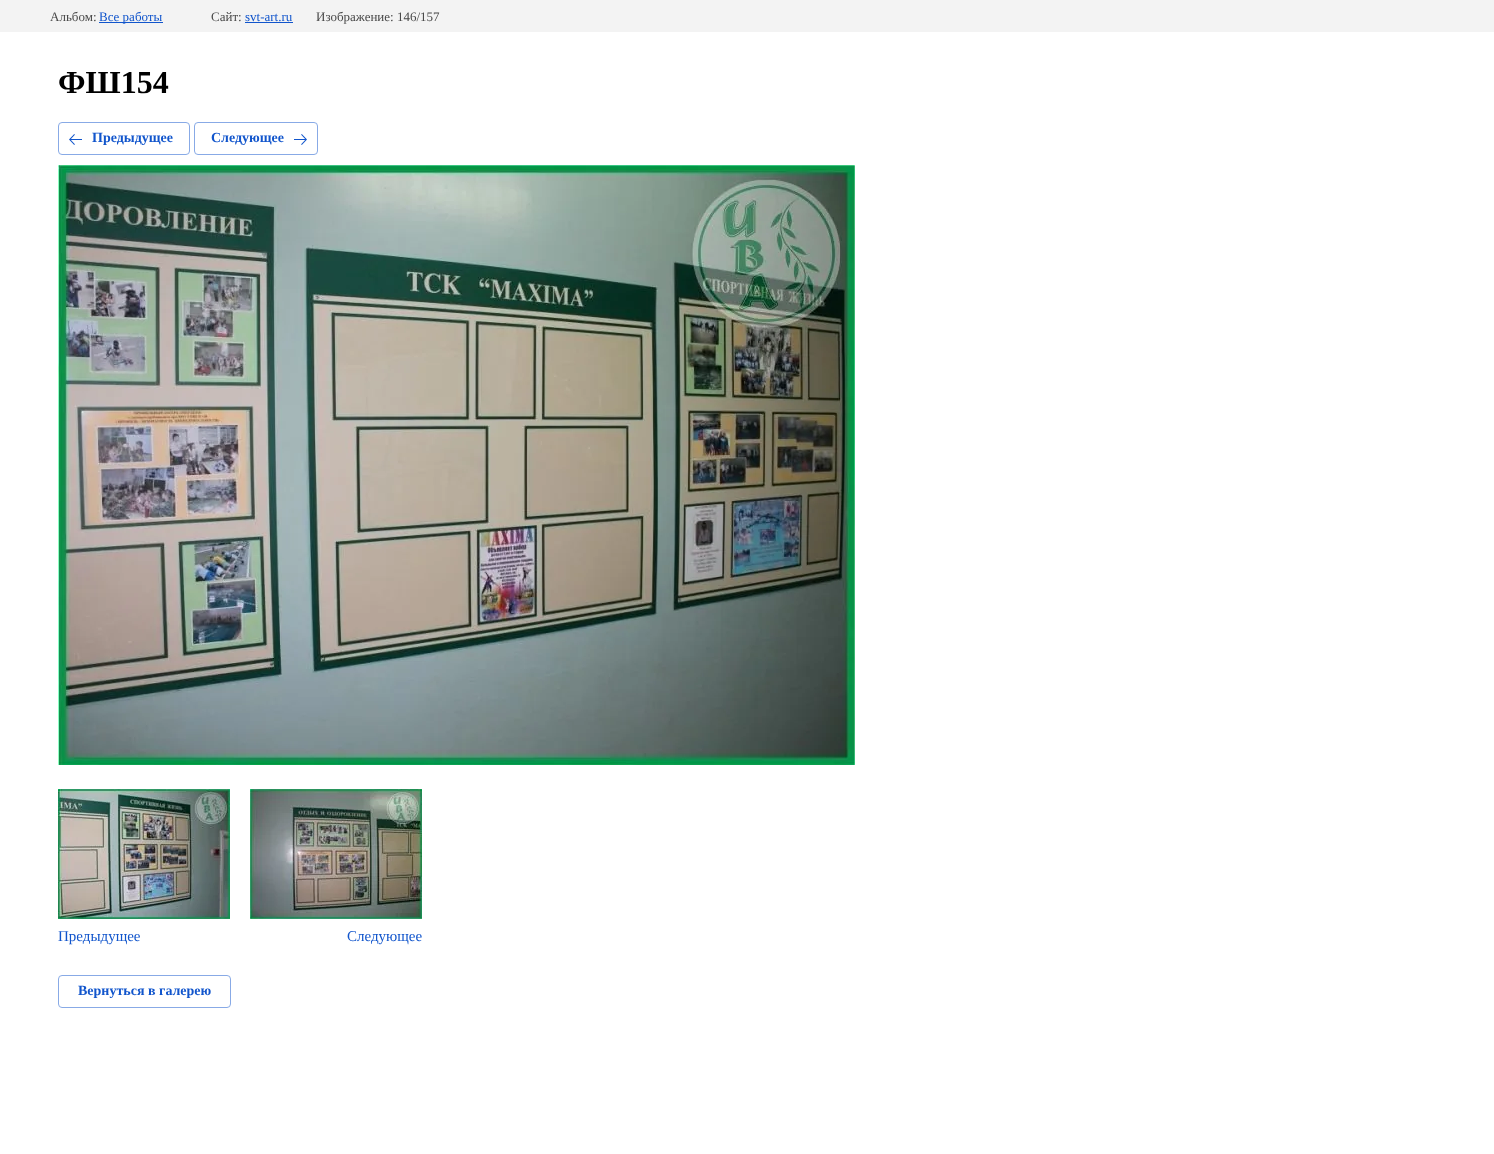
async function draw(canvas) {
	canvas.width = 1494;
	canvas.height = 1154;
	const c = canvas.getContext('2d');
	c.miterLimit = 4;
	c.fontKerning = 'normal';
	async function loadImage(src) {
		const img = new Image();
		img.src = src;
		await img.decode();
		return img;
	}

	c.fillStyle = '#fff';
	c.fillRect(0, 0, 1494, 1154);
	c.fillStyle = '#f3f3f3';
	c.fillRect(0, 0, 1494, 32);
	c.font = '13px Liberation Serif';
	c.fillStyle = '#484848';
	c.fillText('Альбом:', 50, 21);
	c.fillStyle = '#15c';
	c.fillRect(99, 22, 64, 1);
	c.fillText('Все работы', 99, 21);
	c.fillStyle = '#484848';
	c.fillText('Сайт:', 211, 21);
	c.fillStyle = '#15c';
	c.fillText('svt-art.ru', 245, 21);
	c.fillRect(245, 22, 48, 1);
	c.fillStyle = '#484848';
	c.fillText('Изображение: 146/157', 316, 21);
	c.font = 'bold 32px Liberation Serif';
	c.fillStyle = '#000';
	c.fillText('ФШ154', 58, 93);
	c.beginPath();
	c.roundRect(58.5, 122.5, 131, 32, 3.5);
	c.strokeStyle = '#88aae6';
	c.stroke();
	c.drawImage(await loadImage('img1.png'), 69, 134, 13, 11);
	c.font = 'bold 14px Liberation Serif';
	c.fillStyle = '#15c';
	c.fillText('Предыдущее', 92, 142);
	c.beginPath();
	c.roundRect(194.5, 122.5, 123, 32, 3.5);
	c.stroke();
	c.fillText('Следующее', 211, 142);
	c.drawImage(await loadImage('img2.png'), 294, 134, 13, 11);
	c.drawImage(await loadImage('img3.png'), 58, 165, 797, 600);
	c.drawImage(await loadImage('img4.png'), 58, 789, 172, 130);
	c.font = '15px Liberation Serif';
	c.fillText('Предыдущее', 58, 941);
	c.drawImage(await loadImage('img5.png'), 250, 789, 172, 130);
	c.fillText('Следующее', 347, 941);
	c.beginPath();
	c.roundRect(58.5, 975.5, 172, 32, 3.5);
	c.stroke();
	c.font = 'bold 14px Liberation Serif';
	c.fillText('Вернуться в галерею', 78, 995);
}

draw(document.querySelector('canvas'));
